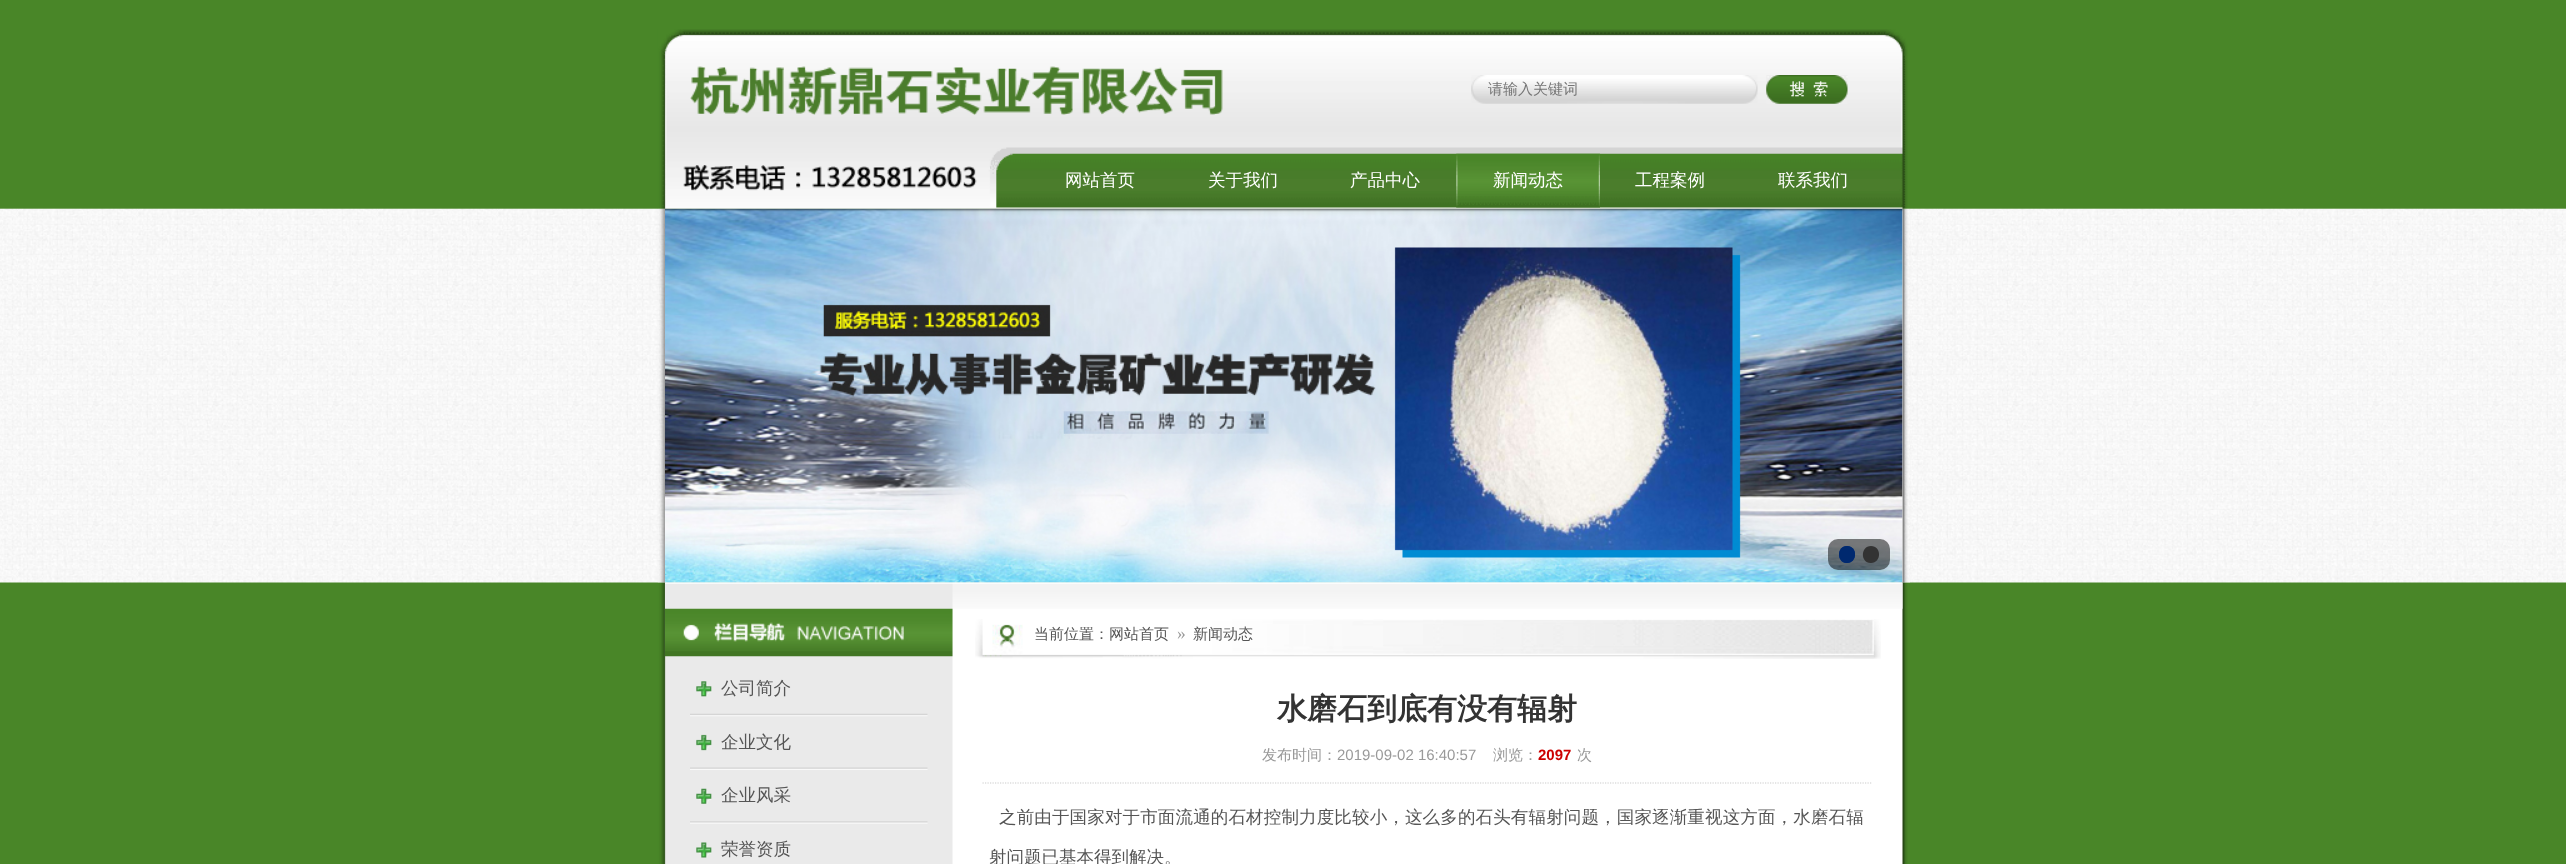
async function draw(canvas) {
	canvas.width = 2566;
	canvas.height = 864;
	const c = canvas.getContext('2d');
	c.miterLimit = 4;
	c.fontKerning = 'normal';
	async function loadImage(src) {
		const img = new Image();
		img.src = src;
		await img.decode();
		return img;
	}

	c.fillStyle = '#498628';
	c.fillRect(0, 0, 2566, 864);
	c.drawImage(await loadImage('img1.png'), 0, 208, 2566, 375);
	c.drawImage(await loadImage('img2.png'), 657, 29, 1253, 180);
	c.drawImage(await loadImage('img3.png'), 690, 66, 533, 49);
	c.drawImage(await loadImage('img4.png'), 1471, 75, 287, 29);
	c.font = '500 15px WenQuanYi Zen Hei';
	c.fillStyle = '#757575';
	c.fillText('请输入关键词', 1488, 94);
	c.drawImage(await loadImage('img5.png'), 1766, 75, 82, 29);
	c.drawImage(await loadImage('img6.png'), 683, 165, 294, 26);
	c.font = '500 17.5px WenQuanYi Zen Hei';
	c.fillStyle = '#fff';
	for (const [text, x, y] of [
		['网站首页', 1065, 186],
		['关于我们', 1208, 186],
		['产品中心', 1350, 186],
	]) {
		c.fillText(text, x, y);
	}
	c.drawImage(await loadImage('img7.png'), 1456, 153, 144, 55);
	for (const [text, x, y] of [
		['新闻动态', 1493, 186],
		['工程案例', 1635, 186],
		['联系我们', 1778, 186],
	]) {
		c.fillText(text, x, y);
	}
	c.drawImage(await loadImage('img11.png'), 657, 582, 1253, 282);
	c.drawImage(await loadImage('img12.png'), 665, 582, 1238, 27);
	c.drawImage(await loadImage('img8.png'), 657, 208, 1253, 375);
	c.drawImage(await loadImage('img9.png'), 665, 208, 1238, 375);
	c.fillStyle = '#00000080';
	c.beginPath();
	c.roundRect(1828, 539, 62, 31, 10);
	c.fill();
	c.fillStyle = '#003182';
	c.beginPath();
	c.roundRect(1839, 546, 16, 17, 8);
	c.fill();
	c.fillStyle = '#00296f';
	c.beginPath();
	c.moveTo(1847, 546);
	c.bezierCurveTo(1836, 546, 1837, 563.5, 1847, 563);
	c.bezierCurveTo(1858, 562.5, 1857.5, 546, 1847, 546);
	c.closePath();
	c.fill();
	c.fillStyle = '#333';
	c.beginPath();
	c.moveTo(1871, 546);
	c.bezierCurveTo(1860, 546, 1860.5, 563.5, 1871, 563);
	c.bezierCurveTo(1882, 562.5, 1881.5, 546, 1871, 546);
	c.closePath();
	c.fill();
	c.drawImage(await loadImage('img10.png'), 665, 208, 1238, 4);
	c.drawImage(await loadImage('img13.png'), 665, 608, 288, 49);
	c.drawImage(await loadImage('img14.png'), 690, 681, 238, 36);
	c.fillStyle = '#555';
	c.fillText('公司简介', 721, 694);
	c.drawImage(await loadImage('img15.png'), 690, 734, 238, 36);
	c.fillText('企业文化', 721, 748);
	c.drawImage(await loadImage('img16.png'), 690, 788, 238, 36);
	c.fillText('企业风采', 721, 801);
	c.drawImage(await loadImage('img17.png'), 696, 842, 16, 16);
	c.fillText('荣誉资质', 721, 855);
	c.drawImage(await loadImage('img18.png'), 975, 619, 906, 40);
	c.font = '500 15px WenQuanYi Zen Hei';
	c.fillText('当前位置：网站首页', 1034, 639);
	c.font = '17.5px Liberation Serif';
	c.fillStyle = '#999';
	c.fillText('»', 1177, 639);
	c.font = '500 15px WenQuanYi Zen Hei';
	c.fillStyle = '#555';
	c.fillText('新闻动态', 1193, 639);
	c.font = 'bold 30px WenQuanYi Zen Hei';
	c.fillStyle = '#333';
	c.fillText('水磨石到底有没有辐射', 1277, 719);
	c.beginPath();
	c.moveTo(982.5, 783);
	c.lineTo(1872.5, 783);
	c.strokeStyle = '#ccc';
	c.lineWidth = 1.2;
	c.setLineDash([1.25, 1.25]);
	c.stroke();
	c.font = '500 15px WenQuanYi Zen Hei';
	c.fillStyle = '#999';
	c.fillText('发布时间：', 1262, 760);
	c.font = '15px Liberation Sans';
	c.fillText('2019-09-02 16:40:57', 1337, 760);
	c.font = '500 15px WenQuanYi Zen Hei';
	c.fillText('浏览：', 1493, 760);
	c.font = 'bold 15px Liberation Sans';
	c.fillStyle = '#c00';
	c.fillText('2097', 1538, 760);
	c.font = '500 15px WenQuanYi Zen Hei';
	c.fillStyle = '#999';
	c.fillText('次', 1577, 760);
	c.letterSpacing = '0.15px';
	c.font = '500 17.5px WenQuanYi Zen Hei';
	c.fillStyle = '#555';
	c.fillText('之前由于国家对于市面流通的石材控制力度比较小，这么多的石头有辐射问题，国家逐渐重视这方面，水磨石辐', 999, 823);
	c.letterSpacing = '0px';
	c.fillText('射问题已基本得到解决。', 989, 863);
}

draw(document.querySelector('canvas'));
